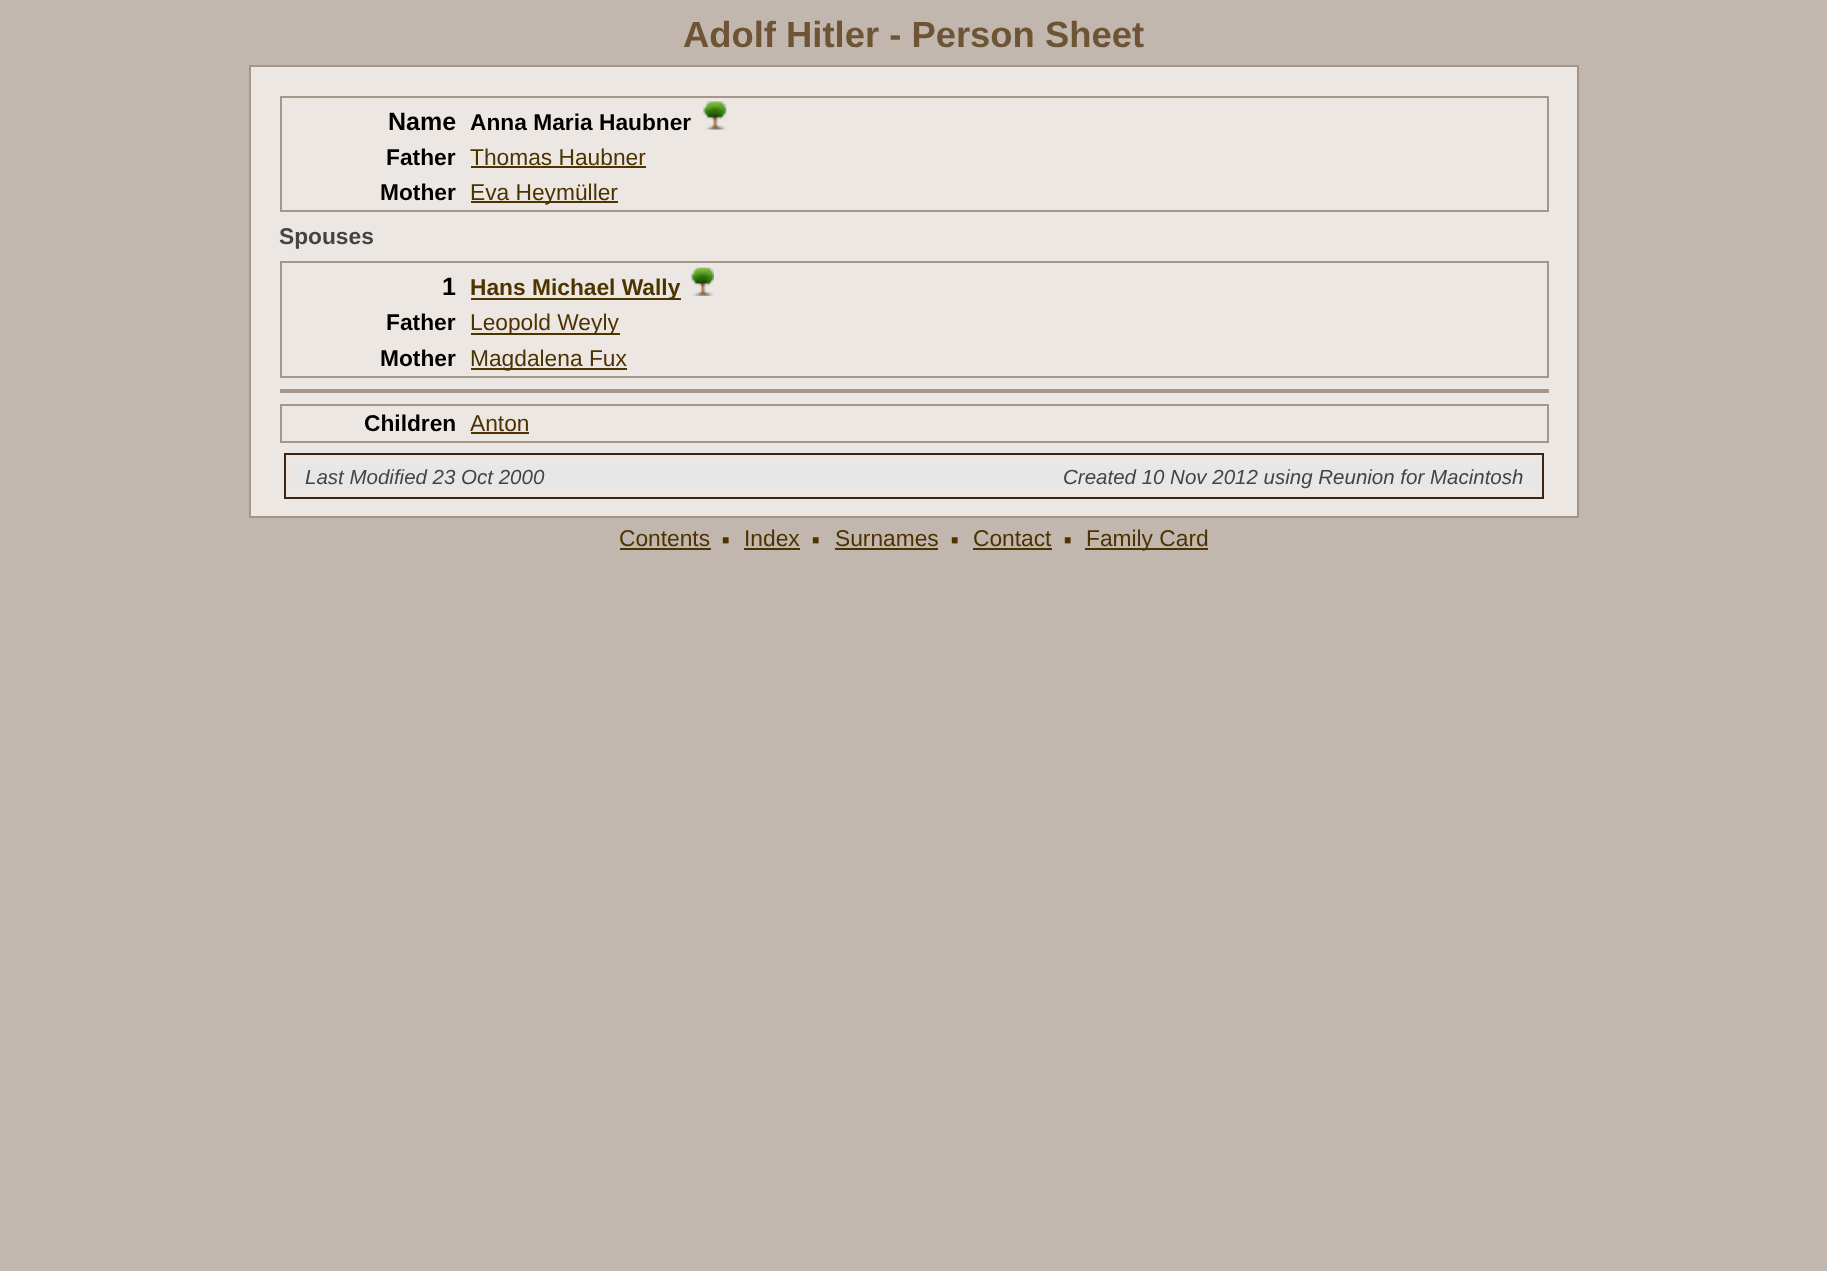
async function draw(canvas) {
	canvas.width = 1827;
	canvas.height = 1271;
	const c = canvas.getContext('2d');
	c.miterLimit = 4;
	c.fontKerning = 'normal';
	async function loadImage(src) {
		const img = new Image();
		img.src = src;
		await img.decode();
		return img;
	}

	c.fillStyle = '#c1b7ae';
	c.fillRect(0, 0, 1827, 1271);
	c.font = 'bold 36.4px Liberation Sans';
	c.fillStyle = '#6d5435';
	c.fillText('Adolf Hitler - Person Sheet', 683, 47);
	c.fillStyle = '#ece7e3';
	c.beginPath();
	c.rect(250, 66, 1328, 451);
	c.fill();
	c.strokeStyle = '#a5968a';
	c.lineWidth = 2;
	c.stroke();
	c.strokeRect(281, 97, 1267, 114);
	c.font = 'bold 25px Liberation Sans';
	c.fillStyle = '#000';
	c.fillText('Name', 388, 130);
	c.font = 'bold 22.75px Liberation Sans';
	c.fillText('Anna Maria Haubner', 470, 130);
	c.drawImage(await loadImage('img1.png'), 703, 101, 24, 29);
	c.fillText('Father', 386, 165);
	c.font = '22.75px Liberation Sans';
	c.fillStyle = '#4d3300';
	c.fillText('Thomas Haubner', 470, 165);
	c.fillRect(471, 166, 175, 2);
	c.font = 'bold 22.75px Liberation Sans';
	c.fillStyle = '#000';
	c.fillText('Mother', 380, 200);
	c.fillStyle = '#4d3300';
	c.fillRect(471, 201, 147, 2);
	c.font = '22.75px Liberation Sans';
	c.fillText('Eva Heymüller', 470, 200);
	c.font = 'bold 22.75px Liberation Sans';
	c.fillStyle = '#444';
	c.fillText('Spouses', 279, 244);
	c.strokeRect(281, 262, 1267, 115);
	c.font = 'bold 25px Liberation Sans';
	c.fillStyle = '#000';
	c.fillText('1', 442, 295);
	c.fillStyle = '#4d3300';
	c.fillRect(471, 298, 210, 2);
	c.font = 'bold 22.75px Liberation Sans';
	c.fillText('Hans Michael Wally', 470, 295);
	c.drawImage(await loadImage('img2.png'), 691, 267, 23, 29);
	c.fillStyle = '#000';
	c.fillText('Father', 386, 330);
	c.fillStyle = '#4d3300';
	c.fillRect(471, 333, 149, 2);
	c.font = '22.75px Liberation Sans';
	c.fillText('Leopold Weyly', 470, 330);
	c.font = 'bold 22.75px Liberation Sans';
	c.fillStyle = '#000';
	c.fillText('Mother', 380, 366);
	c.fillStyle = '#4d3300';
	c.fillRect(471, 368, 156, 2);
	c.font = '22.75px Liberation Sans';
	c.fillText('Magdalena Fux', 470, 366);
	c.fillStyle = '#a5968a';
	c.fillRect(280, 389, 1269, 4);
	c.strokeRect(281, 405, 1267, 37);
	c.font = 'bold 22.75px Liberation Sans';
	c.fillStyle = '#000';
	c.fillText('Children', 364, 431);
	c.font = '22.75px Liberation Sans';
	c.fillStyle = '#4d3300';
	c.fillText('Anton', 470, 431);
	c.fillRect(471, 432, 58, 2);
	c.strokeStyle = '#3f270f';
	c.strokeRect(285, 454, 1258, 44);
	c.fillStyle = '#e7e7e7';
	c.fillRect(294, 466, 1239, 22);
	c.font = 'italic 20.5px Liberation Sans';
	c.fillStyle = '#444';
	c.fillText('Last Modified 23 Oct 2000', 305, 484);
	c.fillText('Created 10 Nov 2012 using Reunion for Macintosh', 1063, 484);
	c.font = '22.75px Liberation Sans';
	c.fillStyle = '#4d3300';
	c.fillText('Contents', 619, 546);
	c.fillRect(620, 548, 91, 2);
	c.font = 'bold 41px Liberation Sans';
	c.fillText('·', 720, 554);
	c.font = '22.75px Liberation Sans';
	c.fillText('Index', 744, 546);
	c.fillRect(744, 548, 56, 2);
	c.font = 'bold 41px Liberation Sans';
	c.fillText('·', 810, 554);
	c.font = '22.75px Liberation Sans';
	c.fillText('Surnames', 835, 546);
	c.fillRect(835, 548, 103, 2);
	c.font = 'bold 41px Liberation Sans';
	c.fillText('·', 949, 554);
	c.font = '22.75px Liberation Sans';
	c.fillText('Contact', 973, 546);
	c.fillRect(973, 548, 79, 2);
	c.font = 'bold 41px Liberation Sans';
	c.fillText('·', 1062, 554);
	c.fillRect(1085, 548, 123, 2);
	c.font = '22.75px Liberation Sans';
	c.fillText('Family Card', 1086, 546);
}

draw(document.querySelector('canvas'));
